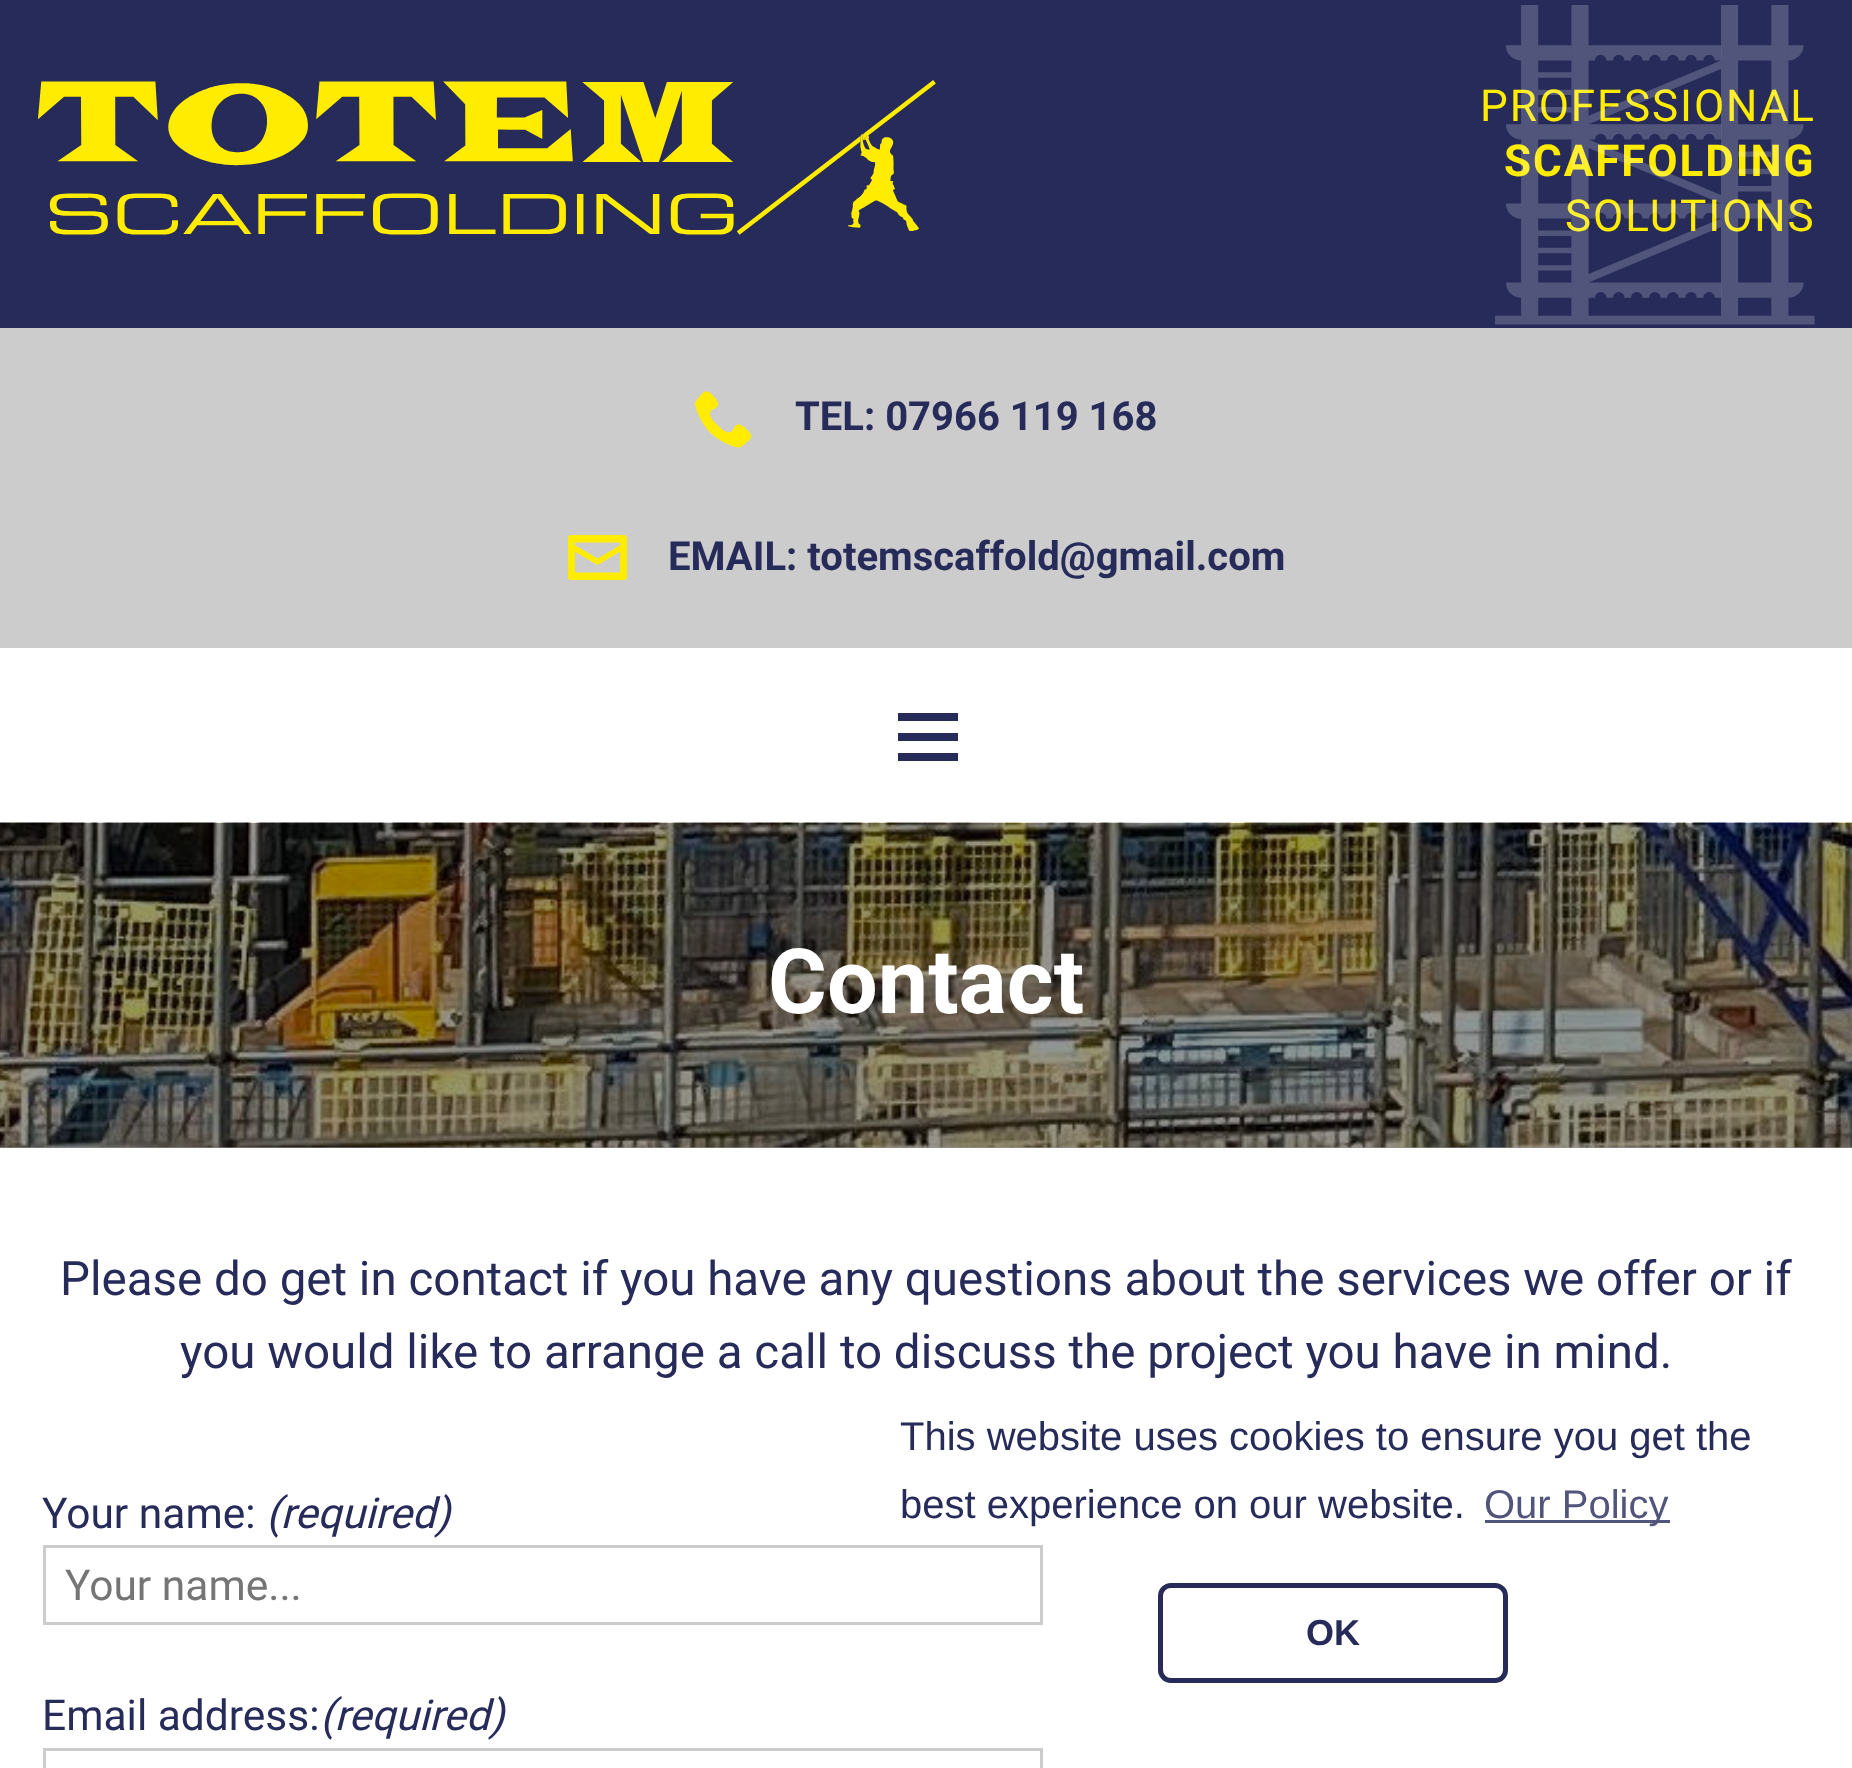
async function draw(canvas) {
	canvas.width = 1852;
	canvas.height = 1768;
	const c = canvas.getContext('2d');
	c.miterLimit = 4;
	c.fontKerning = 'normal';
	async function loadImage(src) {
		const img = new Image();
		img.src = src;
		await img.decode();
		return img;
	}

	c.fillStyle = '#fff';
	c.fillRect(0, 0, 1852, 1768);
	c.fillStyle = '#999';
	c.fillRect(0, 1147, 1852, 1);
	c.fillStyle = '#272b5a';
	c.fillRect(0, 0, 1852, 328);
	c.drawImage(await loadImage('img1.png'), 38, 80, 898, 155);
	c.letterSpacing = '1.9px';
	c.font = '44px Roboto';
	c.fillStyle = '#ffec00';
	c.fillText('PROFESSIONAL', 1480, 121);
	c.font = 'bold 44px Roboto';
	c.fillText('SCAFFOLDING', 1504, 176);
	c.font = '44px Roboto';
	c.fillText('SOLUTIONS', 1565, 231);
	c.drawImage(await loadImage('img2.png'), 1495, 5, 320, 320);
	c.fillStyle = '#ccc';
	c.fillRect(0, 328, 1852, 320);
	c.drawImage(await loadImage('img3.png'), 695, 391, 57, 57);
	c.letterSpacing = '0px';
	c.font = 'bold 40px Roboto';
	c.fillStyle = '#272b5a';
	c.fillText('TEL: 07966 119 168', 795, 430);
	c.drawImage(await loadImage('img4.png'), 567, 535, 61, 45);
	c.fillText('EMAIL: totemscaffold@gmail.com', 668, 570);
	for (const [x, y, w, h, color] of [
		[898, 733, 60, 8, '#272b5a'],
		[898, 713, 60, 8, '#272b5a'],
		[898, 753, 60, 8, '#272b5a'],
	]) {
		c.fillStyle = color;
		c.fillRect(x, y, w, h);
	}
	c.drawImage(await loadImage('img5.png'), 0, 822, 1852, 326);
	c.font = 'bold 90px Roboto';
	c.fillStyle = '#fff';
	c.fillText('Contact', 768, 1013);
	c.font = '47.5px Roboto';
	c.fillStyle = '#272b5a';
	c.fillText('Please do get in contact if you have any questions about the services we offer or if', 60, 1295);
	c.fillText('you would like to arrange a call to discuss the project you have in mind.', 180, 1368);
	c.font = '42.5px Roboto';
	c.fillText('Your name:', 42, 1528);
	c.font = 'italic 42.5px Roboto';
	c.fillText('(required)', 266, 1528);
	c.strokeStyle = '#ccc';
	c.lineWidth = 3;
	c.strokeRect(44.5, 1546.5, 997, 77);
	c.font = '42.5px Roboto';
	c.fillStyle = '#757575';
	c.fillText('Your name...', 65, 1600);
	c.fillStyle = '#272b5a';
	c.fillText('Email address:', 42, 1730);
	c.font = 'italic 42.5px Roboto';
	c.fillText('(required)', 320, 1730);
	c.strokeRect(44.5, 1749.5, 997, 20);
	c.font = '40px Liberation Sans';
	c.fillText('This website uses cookies to ensure you get the', 900, 1450);
	c.fillText('best experience on our website.', 900, 1518);
	c.fillStyle = '#52557b';
	c.fillRect(1485, 1520, 185, 3);
	c.fillText('Our Policy', 1484, 1518);
	c.beginPath();
	c.roundRect(1160.5, 1585.5, 345, 95, 10.5);
	c.strokeStyle = '#272b5a';
	c.lineWidth = 5;
	c.stroke();
	c.font = 'bold 36px Liberation Sans';
	c.fillStyle = '#272b5a';
	c.fillText('OK', 1306, 1645);
}

draw(document.querySelector('canvas'));
